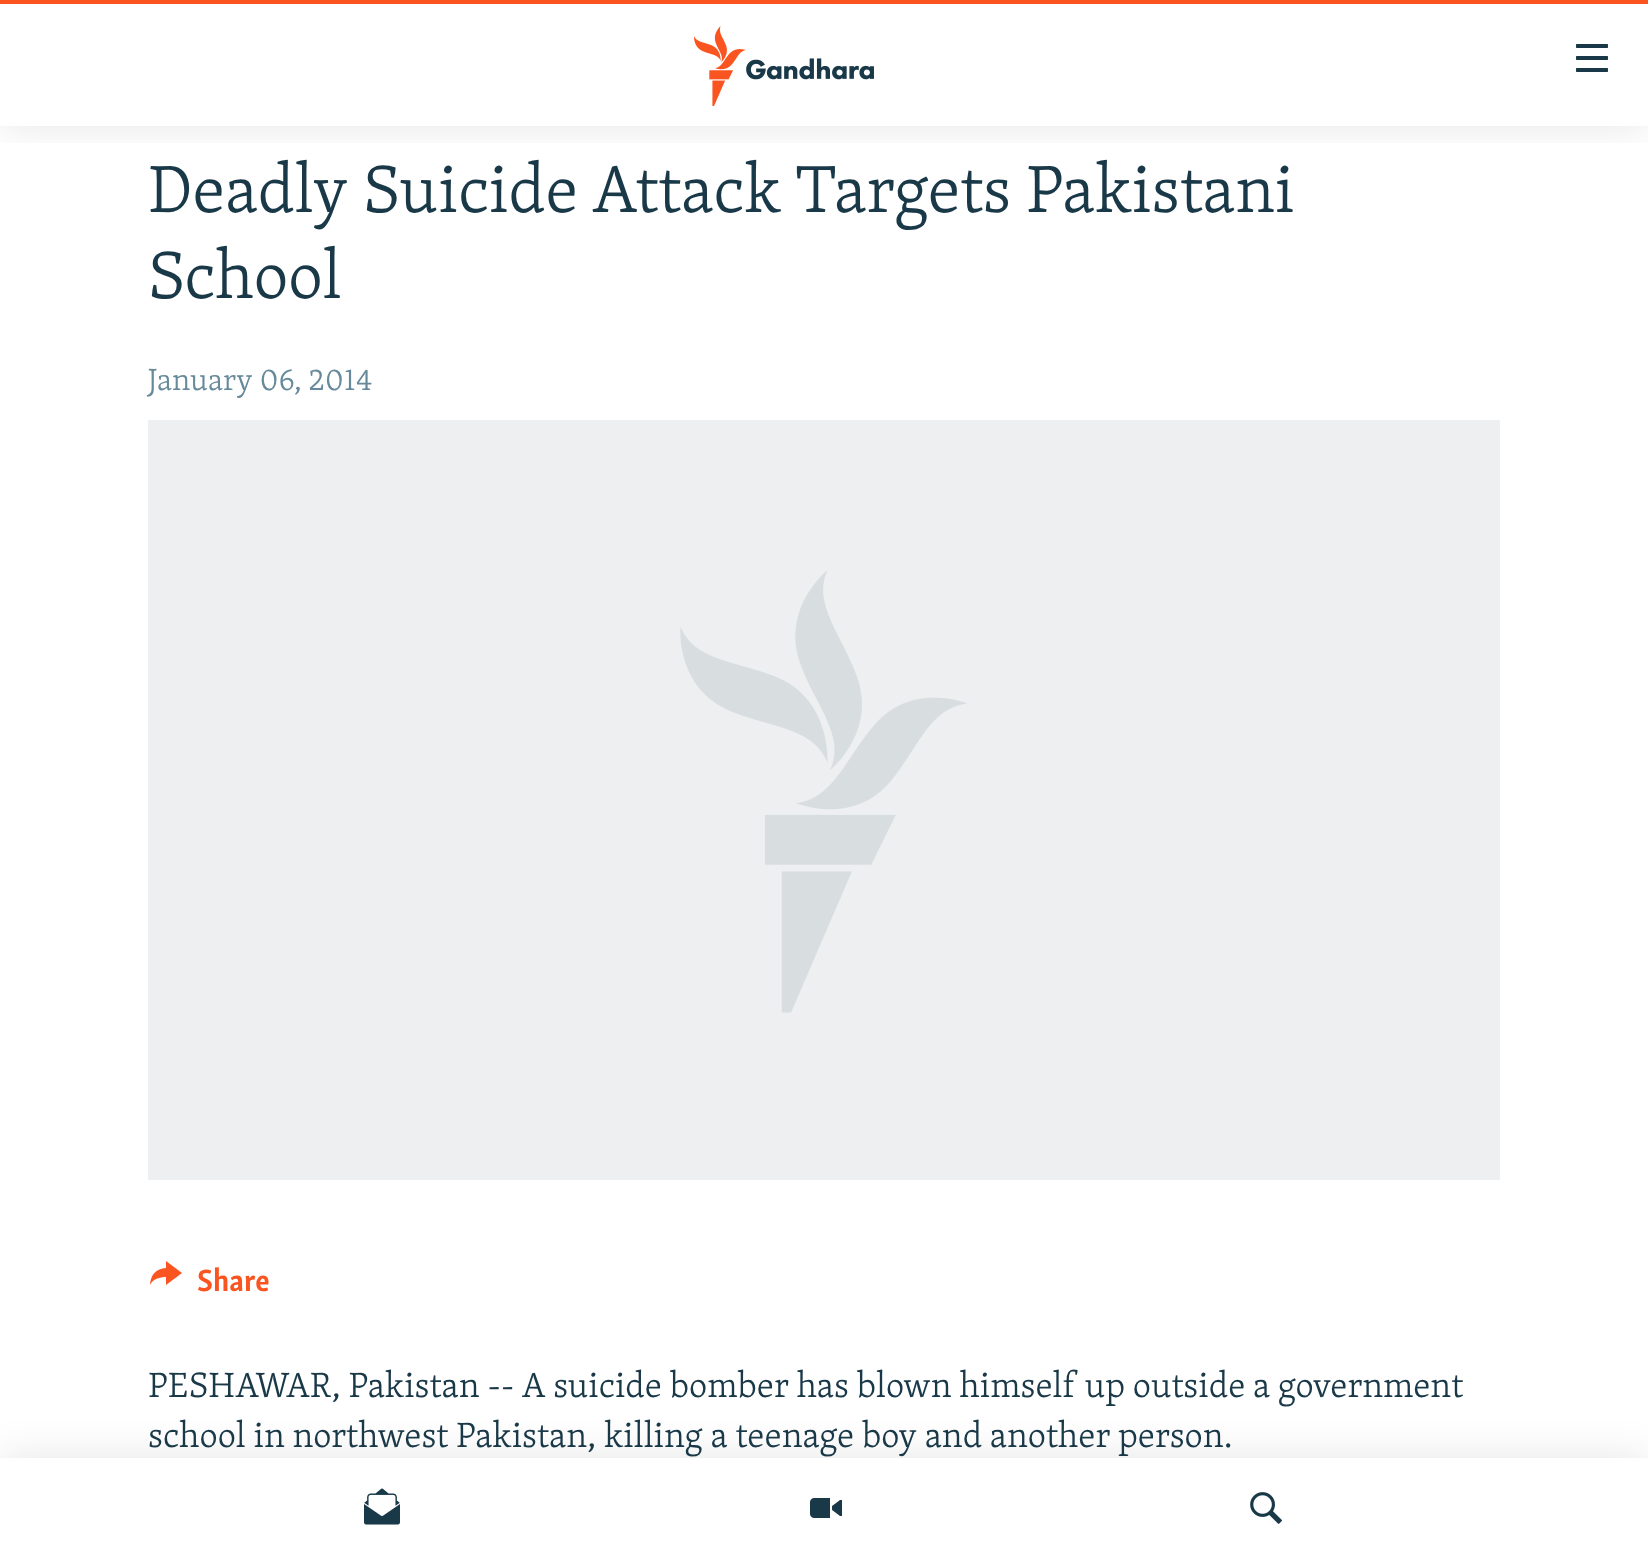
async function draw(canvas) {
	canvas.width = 1648;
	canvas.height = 1557;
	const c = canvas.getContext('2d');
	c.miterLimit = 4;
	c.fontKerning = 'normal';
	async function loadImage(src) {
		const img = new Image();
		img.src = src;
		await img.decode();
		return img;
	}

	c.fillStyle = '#fff';
	c.fillRect(0, 0, 1648, 1557);
	c.save();
	c.beginPath();
	c.rect(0, 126, 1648, 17);
	c.clip();
	c.fillStyle = '#0000001a';
	c.filter = 'blur(20px)';
	c.beginPath();
	c.rect(0, 0, 1648, 126);
	c.fill();
	c.filter = 'none';
	c.restore();
	c.fillStyle = '#fa5420';
	c.fillRect(0, 0, 1648, 4);
	c.drawImage(await loadImage('img1.png'), 694, 26, 180, 80);
	c.drawImage(await loadImage('img2.png'), 1576, 44, 32, 28);
	c.fillStyle = '#0000001a';
	c.filter = 'blur(20px)';
	c.beginPath();
	c.rect(0, 1458, 1648, 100);
	c.fill();
	c.filter = 'none';
	c.fillStyle = '#fff';
	c.fillRect(0, 1458, 1648, 99);
	c.drawImage(await loadImage('img3.png'), 364, 1488, 36, 37);
	c.drawImage(await loadImage('img4.png'), 810, 1498, 32, 20);
	c.drawImage(await loadImage('img5.png'), 1250, 1492, 32, 32);
	c.font = '300 68.4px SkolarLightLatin';
	c.fillStyle = '#1a3948';
	c.fillText('Deadly Suicide Attack Targets Pakistani', 148, 212);
	c.fillText('School', 148, 298);
	c.font = '300 31.5px SkolarLightLatin';
	c.fillStyle = '#678a9b';
	c.fillText('January 06, 2014', 148, 390);
	c.fillStyle = '#edeff0';
	c.fillRect(148, 420, 1352, 760);
	c.drawImage(await loadImage('img6.png'), 680, 571, 287, 442);
	c.fillStyle = '#fa5420';
	c.beginPath();
	c.moveTo(150, 1285);
	c.bezierCurveTo(150.5, 1275, 156, 1268.5, 166, 1268);
	c.lineTo(166, 1261);
	c.lineTo(182, 1273);
	c.lineTo(166, 1285);
	c.lineTo(166, 1277);
	c.bezierCurveTo(160, 1277, 152.5, 1279, 150, 1285);
	c.closePath();
	c.fill();
	c.font = 'bold 31.5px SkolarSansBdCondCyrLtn';
	c.fillText('Share', 197, 1291);
	c.font = '300 36px SkolarLightLatin';
	c.fillStyle = '#1a3948';
	c.fillText('PESHAWAR, Pakistan -- A suicide bomber has blown himself up outside a government', 148, 1397);
	c.fillText('school in northwest Pakistan, killing a teenage boy and another person.', 148, 1447);
}

draw(document.querySelector('canvas'));
